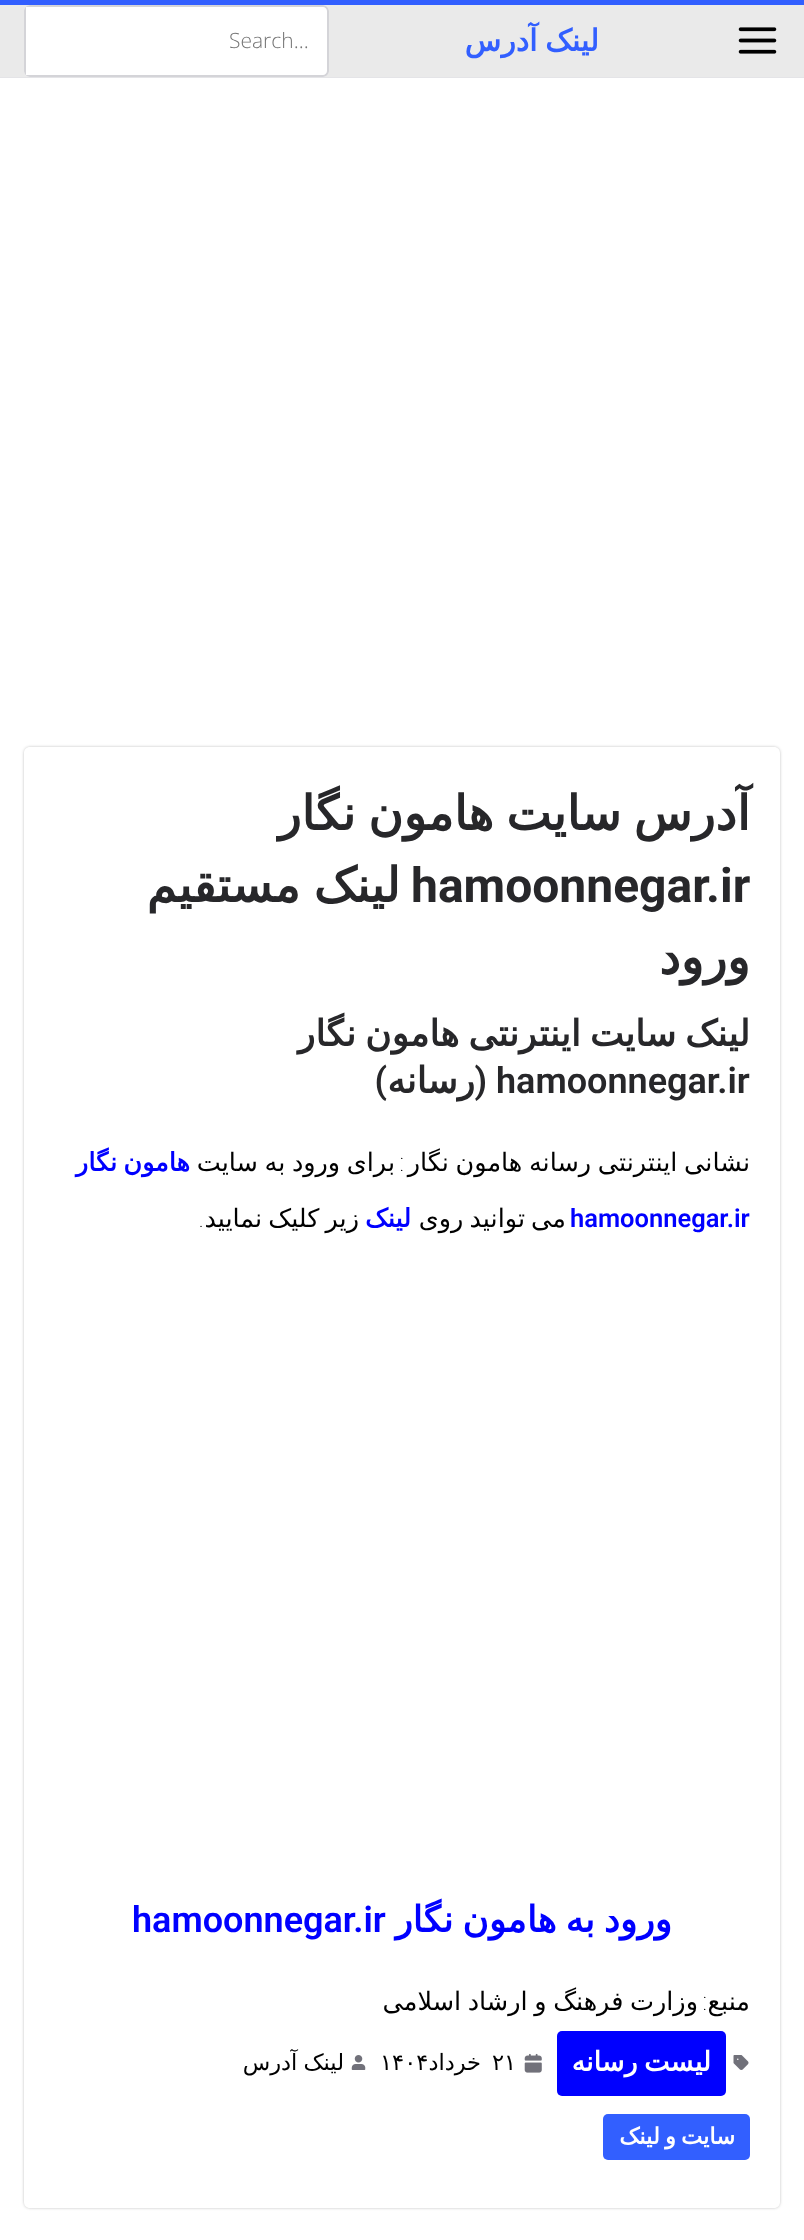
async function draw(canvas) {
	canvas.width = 804;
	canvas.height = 2240;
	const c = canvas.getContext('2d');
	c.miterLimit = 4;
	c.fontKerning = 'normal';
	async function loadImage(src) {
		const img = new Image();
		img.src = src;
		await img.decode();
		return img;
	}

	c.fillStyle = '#e4e4e7';
	c.fillRect(0, 0, 804, 2240);
	c.fillStyle = '#eaeaea';
	c.fillRect(0, 5, 804, 72);
	c.fillStyle = '#325fff';
	c.fillRect(0, 0, 804, 5);
	c.drawImage(await loadImage('img1.png'), 738, 27, 39, 27);
	c.wordSpacing = '-2px';
	c.direction = 'rtl';
	c.font = 'bold 30px DejaVu Sans';
	c.fillText('لینک آدرس', 599, 51);
	c.fillStyle = '#fff';
	c.beginPath();
	c.roundRect(24, 5, 305, 72, 6);
	c.fill();
	c.fillStyle = '#d4d4d8';
	c.beginPath();
	c.moveTo(30, 5);
	c.bezierCurveTo(27, 5, 24, 8, 24, 11);
	c.lineTo(24, 71);
	c.bezierCurveTo(24, 74, 27, 77, 30, 77);
	c.lineTo(323, 77);
	c.bezierCurveTo(326, 77, 329, 74, 329, 71);
	c.lineTo(329, 11);
	c.bezierCurveTo(329, 8, 326, 5, 323, 5);
	c.closePath();
	c.moveTo(26, 7);
	c.lineTo(26, 75);
	c.lineTo(323, 75);
	c.bezierCurveTo(325, 75, 327, 73, 327, 71);
	c.lineTo(327, 11);
	c.bezierCurveTo(327, 9, 325, 7, 323, 7);
	c.closePath();
	c.fill('evenodd');
	c.wordSpacing = '0px';
	c.direction = 'ltr';
	c.font = '300 21px Open Sans';
	c.fillStyle = '#757575';
	c.fillText('Search...', 229, 48);
	c.fillStyle = '#fff';
	c.fillRect(0, 78, 804, 2162);
	c.save();
	c.beginPath();
	c.moveTo(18, 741);
	c.lineTo(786, 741);
	c.lineTo(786, 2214);
	c.lineTo(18, 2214);
	c.closePath();
	c.moveTo(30, 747);
	c.lineTo(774, 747);
	c.bezierCurveTo(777.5, 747, 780, 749.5, 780, 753);
	c.lineTo(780, 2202);
	c.bezierCurveTo(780, 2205.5, 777.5, 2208, 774, 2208);
	c.lineTo(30, 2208);
	c.bezierCurveTo(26.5, 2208, 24, 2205.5, 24, 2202);
	c.lineTo(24, 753);
	c.bezierCurveTo(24, 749.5, 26.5, 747, 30, 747);
	c.closePath();
	c.clip('evenodd');
	c.fillStyle = '#0000003d';
	c.filter = 'blur(1.5px)';
	c.beginPath();
	c.roundRect(24, 747, 756, 1461, 6);
	c.fill();
	c.filter = 'none';
	c.restore();
	c.wordSpacing = '-3px';
	c.direction = 'rtl';
	c.font = 'bold 48px DejaVu Sans';
	c.fillStyle = '#27272a';
	c.fillText('آدرس سایت هامون نگار', 750, 830);
	c.wordSpacing = '0px';
	c.direction = 'ltr';
	c.font = 'bold 48px Roboto';
	c.fillText('hamoonnegar.ir', 411, 902);
	c.wordSpacing = '-2px';
	c.direction = 'rtl';
	c.font = 'bold 48px DejaVu Sans';
	c.fillText('لینک مستقیم', 400, 902);
	c.wordSpacing = '0px';
	c.fillText('ورود', 750, 974);
	c.wordSpacing = '-2.5px';
	c.font = 'bold 36px DejaVu Sans';
	c.fillText('لینک سایت اینترنتی هامون نگار', 750, 1046);
	c.wordSpacing = '0px';
	c.direction = 'ltr';
	c.font = '600 36px Roboto';
	c.fillText('hamoonnegar.ir', 496, 1093);
	c.direction = 'rtl';
	c.fillText('(', 487, 1093);
	c.font = 'bold 36px DejaVu Sans';
	c.fillText('رسانه', 475, 1093);
	c.font = '600 36px Roboto';
	c.fillText(')', 387, 1093);
	c.wordSpacing = '-1.5px';
	c.font = '25.5px DejaVu Sans';
	c.fillStyle = '#000';
	c.fillText('نشانی اینترنتی رسانه هامون نگار', 750, 1171);
	c.wordSpacing = '0px';
	c.font = '100 25.5px Roboto';
	c.fillText(':', 404, 1171);
	c.wordSpacing = '-1.5px';
	c.font = '25.5px DejaVu Sans';
	c.fillText('برای ورود به سایت', 395, 1171);
	c.wordSpacing = '-2px';
	c.font = 'bold 25.5px DejaVu Sans';
	c.fillStyle = '#00f';
	c.fillText('هامون نگار', 190, 1171);
	c.wordSpacing = '0px';
	c.direction = 'ltr';
	c.font = '600 25.5px Roboto';
	c.fillText('hamoonnegar.ir', 570, 1227);
	c.wordSpacing = '-2px';
	c.direction = 'rtl';
	c.font = '25.5px DejaVu Sans';
	c.fillStyle = '#000';
	c.fillText('می توانید روی', 566, 1227);
	c.wordSpacing = '0px';
	c.font = 'bold 25.5px DejaVu Sans';
	c.fillStyle = '#00f';
	c.fillText('لینک', 411, 1227);
	c.wordSpacing = '-2px';
	c.font = '25.5px DejaVu Sans';
	c.fillStyle = '#000';
	c.fillText('زیر کلیک نمایید', 359, 1227);
	c.wordSpacing = '0px';
	c.font = '100 25.5px Roboto';
	c.fillText('.', 204, 1227);
	c.wordSpacing = '-2.5px';
	c.font = 'bold 36px DejaVu Sans';
	c.fillStyle = '#00f';
	c.fillText('ورود به هامون نگار', 672, 1932);
	c.wordSpacing = '0px';
	c.direction = 'ltr';
	c.font = '600 36px Roboto';
	c.fillText('hamoonnegar.ir', 132, 1932);
	c.direction = 'rtl';
	c.font = '25.5px DejaVu Sans';
	c.fillStyle = '#000';
	c.fillText('منبع', 750, 2010);
	c.font = '100 25.5px Roboto';
	c.fillText(':', 707, 2010);
	c.wordSpacing = '-1.5px';
	c.font = '25.5px DejaVu Sans';
	c.fillText('وزارت فرهنگ و ارشاد اسلامی', 698, 2010);
	c.drawImage(await loadImage('img2.png'), 733, 2055, 16, 15);
	c.fillStyle = '#00f';
	c.beginPath();
	c.roundRect(557, 2031, 169, 65, 5);
	c.fill();
	c.wordSpacing = '-2px';
	c.font = 'bold 27px DejaVu Sans';
	c.fillStyle = '#fff';
	c.fillText('لیست رسانه', 711, 2071);
	c.drawImage(await loadImage('img3.png'), 524, 2053, 18, 20);
	c.wordSpacing = '0px';
	c.direction = 'ltr';
	c.font = '22.5px DejaVu Sans';
	c.fillStyle = '#000';
	c.fillText('۲۱', 492, 2070);
	c.direction = 'rtl';
	c.fillText('خرداد', 481, 2070);
	c.direction = 'ltr';
	c.fillText('۱۴۰۴', 380, 2070);
	c.drawImage(await loadImage('img4.png'), 351, 2055, 15, 15);
	c.wordSpacing = '-1px';
	c.direction = 'rtl';
	c.fillText('لینک آدرس', 344, 2070);
	c.fillStyle = '#325fff';
	c.beginPath();
	c.roundRect(603, 2114, 147, 46, 5);
	c.fill();
	c.wordSpacing = '-2px';
	c.font = 'bold 22.5px DejaVu Sans';
	c.fillStyle = '#fff';
	c.fillText('سایت و لینک', 735, 2144);
}

draw(document.querySelector('canvas'));
